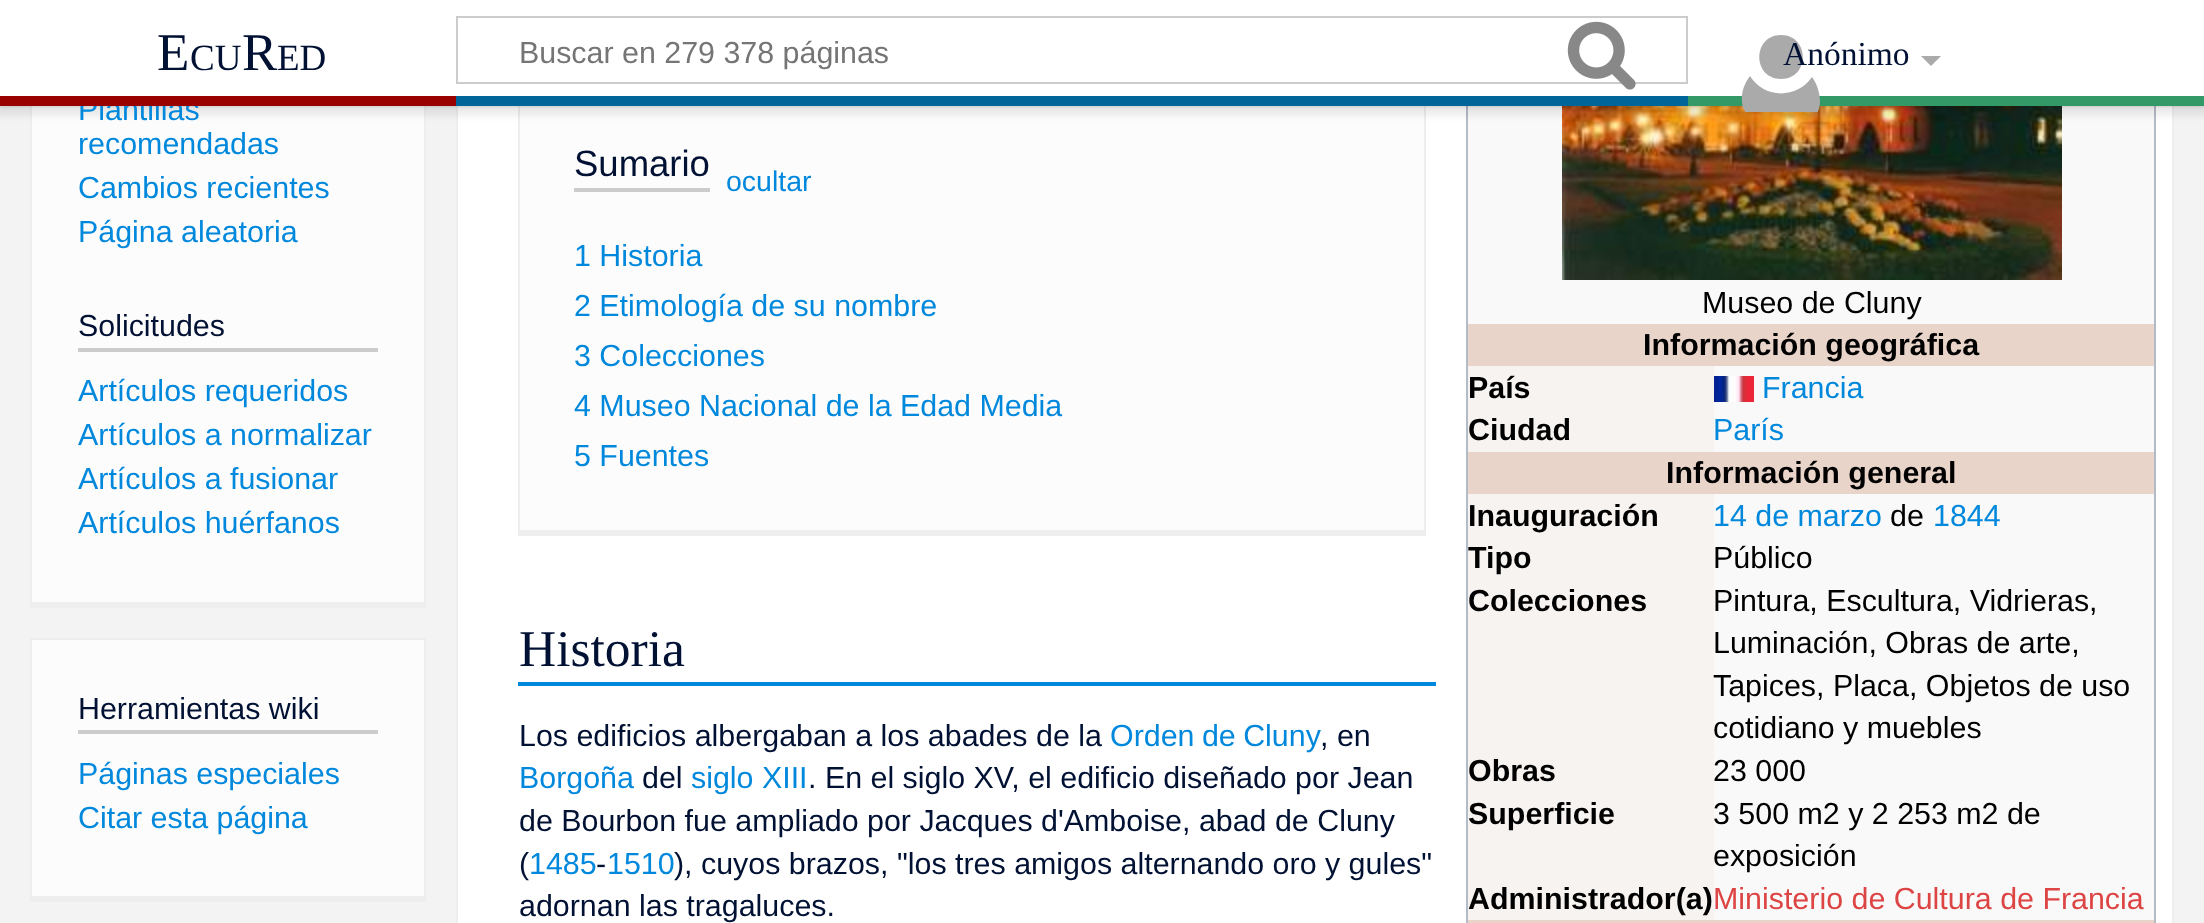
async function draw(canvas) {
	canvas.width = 2204;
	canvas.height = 923;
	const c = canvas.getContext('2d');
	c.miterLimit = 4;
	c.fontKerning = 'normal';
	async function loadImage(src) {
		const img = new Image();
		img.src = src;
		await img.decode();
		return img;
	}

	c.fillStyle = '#f3f3f3';
	c.fillRect(0, 0, 2204, 923);
	for (const [x, y, w, h, color] of [
		[32, 106, 392, 496, '#fcfcfc'],
		[424, 106, 2, 502, '#eee'],
		[30, 602, 396, 6, '#eee'],
		[30, 106, 2, 502, '#eee'],
		[458, 106, 1714, 817, '#fff'],
		[2172, 106, 2, 817, '#eee'],
		[456, 106, 2, 817, '#eee'],
		[520, 106, 904, 424, '#fcfcfc'],
		[1424, 102, 2, 434, '#eee'],
		[518, 530, 908, 6, '#eee'],
		[518, 102, 2, 434, '#eee'],
		[1468, 106, 686, 814, '#f9f9f9'],
		[1468, 920, 688, 3, '#e9d4ca'],
		[2154, 106, 2, 817, '#b4bbc8'],
		[1466, 106, 2, 817, '#b4bbc8'],
	]) {
		c.fillStyle = color;
		c.fillRect(x, y, w, h);
	}
	c.drawImage(await loadImage('img2.png'), 1562, 106, 500, 174);
	c.fillStyle = '#00000033';
	c.filter = 'blur(2px)';
	c.beginPath();
	c.rect(0, 96, 2204, 10);
	c.fill();
	c.filter = 'none';
	c.fillStyle = '#00000012';
	c.filter = 'blur(3px)';
	c.beginPath();
	c.rect(-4, 98, 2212, 18);
	c.fill();
	c.filter = 'none';
	c.fillStyle = '#fff';
	c.fillRect(0, 0, 2204, 96);
	c.font = '53px Liberation Serif';
	c.fillStyle = '#013';
	c.fillText('E', 157, 70);
	c.font = '37px Liberation Serif';
	c.fillText('CU', 190, 70);
	c.font = '53px Liberation Serif';
	c.fillText('R', 242, 70);
	c.font = '37px Liberation Serif';
	c.fillText('ED', 277, 70);
	c.strokeStyle = '#ccc';
	c.lineWidth = 2;
	c.strokeRect(457, 17, 1230, 66);
	c.font = '30.4px Liberation Sans';
	c.fillStyle = '#757575';
	c.fillText('Buscar en 279 378 páginas', 519, 63);
	c.drawImage(await loadImage('img1.png'), 1567, 21, 69, 69);
	c.fillStyle = '#396';
	c.fillRect(1688, 96, 516, 10);
	c.save();
	c.beginPath();
	c.rect(1732, 30, 98, 82);
	c.clip();
	c.fillStyle = '#aaa';
	c.beginPath();
	c.moveTo(1750, 76);
	c.bezierCurveTo(1744, 84, 1741, 93, 1742, 102);
	c.bezierCurveTo(1742, 106, 1744, 110, 1746, 113);
	c.bezierCurveTo(1753, 125, 1769, 123, 1782, 123);
	c.bezierCurveTo(1798, 123, 1819, 125, 1820, 102);
	c.bezierCurveTo(1820, 93, 1817, 84, 1812, 77);
	c.bezierCurveTo(1797, 99, 1764, 99, 1750, 76);
	c.closePath();
	c.fill();
	c.restore();
	c.fillStyle = '#aaa';
	c.beginPath();
	c.moveTo(1781, 35);
	c.bezierCurveTo(1752, 35, 1752, 79, 1781, 79);
	c.bezierCurveTo(1810, 79, 1810, 35, 1781, 35);
	c.closePath();
	c.fill('evenodd');
	c.font = '33.5px Liberation Serif';
	c.fillStyle = '#013';
	c.fillText('Anónimo', 1783, 65);
	c.fillStyle = '#aaa';
	c.beginPath();
	c.moveTo(1941, 56);
	c.lineTo(1931, 66);
	c.lineTo(1921, 56);
	c.closePath();
	c.fill();
	c.font = '30.4px Liberation Sans';
	c.fillStyle = '#08d';
	c.fillText('Plantillas', 78, 120);
	c.fillStyle = '#900';
	c.fillRect(0, 96, 456, 10);
	c.fillStyle = '#069';
	c.fillRect(456, 96, 1232, 10);
	c.fillStyle = '#08d';
	for (const [text, x, y] of [
		['recomendadas', 78, 154],
		['Cambios recientes', 78, 198],
		['Página aleatoria', 78, 242],
	]) {
		c.fillText(text, x, y);
	}
	c.fillStyle = '#ccc';
	c.fillRect(78, 348, 300, 4);
	c.fillStyle = '#013';
	c.fillText('Solicitudes', 78, 336);
	c.fillStyle = '#08d';
	for (const [text, x, y] of [
		['Artículos requeridos', 78, 401],
		['Artículos a normalizar', 78, 445],
		['Artículos a fusionar', 78, 489],
		['Artículos huérfanos', 78, 533],
	]) {
		c.fillText(text, x, y);
	}
	for (const [x, y, w, h, color] of [
		[32, 640, 392, 256, '#fcfcfc'],
		[30, 638, 396, 2, '#eee'],
		[424, 638, 2, 264, '#eee'],
		[30, 896, 396, 6, '#eee'],
		[30, 638, 2, 264, '#eee'],
		[78, 730, 300, 4, '#ccc'],
	]) {
		c.fillStyle = color;
		c.fillRect(x, y, w, h);
	}
	c.fillStyle = '#013';
	c.fillText('Herramientas wiki', 78, 719);
	c.fillStyle = '#08d';
	c.fillText('Páginas especiales', 78, 784);
	c.fillText('Citar esta página', 78, 828);
	c.fillStyle = '#ccc';
	c.fillRect(574, 188, 136, 4);
	c.font = '36.5px Liberation Sans';
	c.fillStyle = '#013';
	c.fillText('Sumario', 574, 176);
	c.font = '28.5px Liberation Sans';
	c.fillStyle = '#08d';
	c.fillText('ocultar', 726, 191);
	c.font = '30.4px Liberation Sans';
	for (const [text, x, y] of [
		['1 Historia', 574, 266],
		['2 Etimología de su nombre', 574, 316],
		['3 Colecciones', 574, 366],
		['4 Museo Nacional de la Edad Media', 574, 416],
		['5 Fuentes', 574, 466],
	]) {
		c.fillText(text, x, y);
	}
	c.fillStyle = '#000';
	c.fillText('Museo de Cluny', 1702, 313);
	c.fillStyle = '#e9d4ca';
	c.fillRect(1468, 324, 686, 42);
	c.font = 'bold 30.4px Liberation Sans';
	c.fillStyle = '#000';
	c.fillText('Información geográfica', 1643, 355);
	c.fillStyle = '#f7f3f1';
	c.fillRect(1468, 366, 246, 86);
	c.fillStyle = '#000';
	c.fillText('País', 1468, 398);
	c.drawImage(await loadImage('img3.png'), 1714, 376, 40, 26);
	c.font = '30.4px Liberation Sans';
	c.fillStyle = '#08d';
	c.fillText('Francia', 1762, 398);
	c.font = 'bold 30.4px Liberation Sans';
	c.fillStyle = '#000';
	c.fillText('Ciudad', 1468, 440);
	c.font = '30.4px Liberation Sans';
	c.fillStyle = '#08d';
	c.fillText('París', 1713, 440);
	c.fillStyle = '#e9d4ca';
	c.fillRect(1468, 452, 686, 42);
	c.font = 'bold 30.4px Liberation Sans';
	c.fillStyle = '#000';
	c.fillText('Información general', 1666, 483);
	c.fillStyle = '#f7f3f1';
	c.fillRect(1468, 494, 246, 426);
	c.fillStyle = '#000';
	c.fillText('Inauguración', 1468, 526);
	c.font = '30.4px Liberation Sans';
	c.fillStyle = '#08d';
	c.fillText('14 de marzo', 1713, 526);
	c.fillStyle = '#000';
	c.fillText('de', 1890, 526);
	c.fillStyle = '#08d';
	c.fillText('1844', 1933, 526);
	c.font = 'bold 30.4px Liberation Sans';
	c.fillStyle = '#000';
	c.fillText('Tipo', 1468, 568);
	c.font = '30.4px Liberation Sans';
	c.fillText('Público', 1713, 568);
	c.font = 'bold 30.4px Liberation Sans';
	c.fillText('Colecciones', 1468, 611);
	c.font = '30.4px Liberation Sans';
	for (const [text, x, y] of [
		['Pintura, Escultura, Vidrieras,', 1713, 611],
		['Luminación, Obras de arte,', 1713, 653],
		['Tapices, Placa, Objetos de uso', 1713, 696],
		['cotidiano y muebles', 1713, 738],
	]) {
		c.fillText(text, x, y);
	}
	c.font = 'bold 30.4px Liberation Sans';
	c.fillText('Obras', 1468, 781);
	c.font = '30.4px Liberation Sans';
	c.fillText('23 000', 1713, 781);
	c.font = 'bold 30.4px Liberation Sans';
	c.fillText('Superficie', 1468, 824);
	c.font = '30.4px Liberation Sans';
	c.fillText('3 500 m2 y 2 253 m2 de', 1713, 824);
	c.fillText('exposición', 1713, 866);
	c.font = 'bold 30.4px Liberation Sans';
	c.fillText('Administrador(a)', 1468, 909);
	c.font = '30.4px Liberation Sans';
	c.fillStyle = '#d44';
	c.fillText('Ministerio de Cultura de Francia', 1713, 909);
	c.fillStyle = '#08d';
	c.fillRect(518, 682, 918, 4);
	c.font = '51.5px Liberation Serif';
	c.fillStyle = '#013';
	c.fillText('Historia', 519, 666);
	c.font = '30.4px Liberation Sans';
	c.fillText('Los edificios albergaban a los abades de la', 519, 746);
	c.wordSpacing = '-1px';
	c.fillStyle = '#08d';
	c.fillText('Orden de Cluny', 1110, 746);
	c.wordSpacing = '0px';
	c.fillStyle = '#013';
	c.fillText(', en', 1320, 746);
	c.fillStyle = '#08d';
	c.fillText('Borgoña', 519, 788);
	c.fillStyle = '#013';
	c.fillText('del', 642, 788);
	c.fillStyle = '#08d';
	c.fillText('siglo XIII', 691, 788);
	c.fillStyle = '#013';
	for (const [text, x, y] of [
		['. En el siglo XV, el edificio diseñado por Jean', 808, 788],
		['de Bourbon fue ampliado por Jacques d\'Amboise, abad de Cluny', 519, 831],
		['(', 519, 874],
	]) {
		c.fillText(text, x, y);
	}
	c.fillStyle = '#08d';
	c.fillText('1485', 529, 874);
	c.fillStyle = '#013';
	c.fillText('-', 596, 874);
	c.fillStyle = '#08d';
	c.fillText('1510', 607, 874);
	c.fillStyle = '#013';
	c.fillText('), cuyos brazos, "los tres amigos alternando oro y gules"', 674, 874);
	c.fillText('adornan las tragaluces.', 519, 916);
}

draw(document.querySelector('canvas'));
